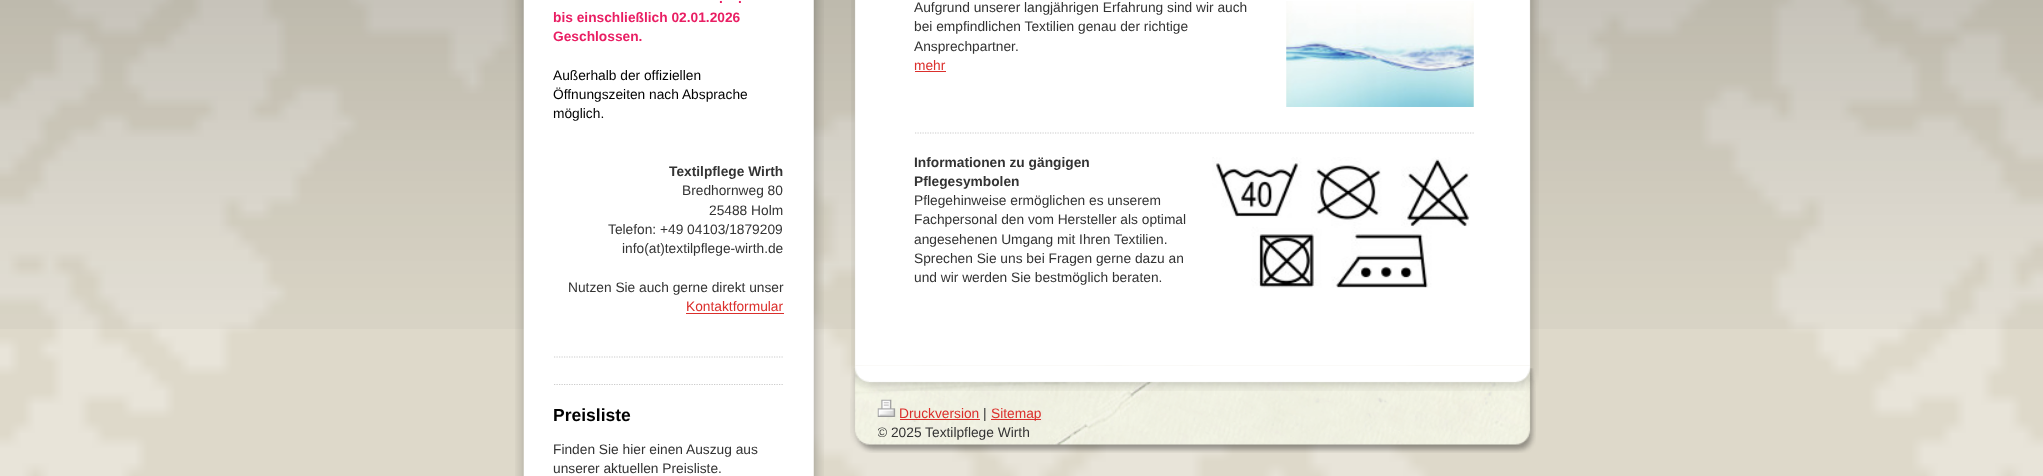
async function draw(canvas) {
	canvas.width = 2043;
	canvas.height = 476;
	const c = canvas.getContext('2d');
	c.miterLimit = 4;
	c.fontKerning = 'normal';
	async function loadImage(src) {
		const img = new Image();
		img.src = src;
		await img.decode();
		return img;
	}

	c.fillStyle = '#fff';
	c.fillRect(0, 0, 2043, 476);
	c.drawImage(await loadImage('img1.png'), 0, 0, 2043, 476);
	c.drawImage(await loadImage('img2.png'), 0, 0, 2043, 329);
	c.drawImage(await loadImage('img3.png'), 515, 0, 309, 476);
	c.font = 'bold 13.75px Liberation Sans';
	c.fillStyle = '#e91e63';
	for (const [text, x, y] of [
		['.', 719, 3],
		['.', 738, 3],
		['bis einschließlich 02.01.2026', 553, 22],
		['Geschlossen.', 553, 41],
	]) {
		c.fillText(text, x, y);
	}
	c.font = '13.75px Liberation Sans';
	c.fillStyle = '#000';
	for (const [text, x, y] of [
		['Außerhalb der offiziellen', 553, 80],
		['Öffnungszeiten nach Absprache', 553, 99],
		['möglich.', 553, 118],
	]) {
		c.fillText(text, x, y);
	}
	c.font = 'bold 13.75px Liberation Sans';
	c.fillStyle = '#333';
	c.fillText('Textilpflege Wirth', 669, 176);
	c.font = '13.75px Liberation Sans';
	for (const [text, x, y] of [
		['Bredhornweg 80', 682, 195],
		['25488 Holm', 709, 215],
		['Telefon: +49 04103/1879209', 608, 234],
		['info(at)textilpflege-wirth.de', 622, 253],
		['Nutzen Sie auch gerne direkt unser', 568, 292],
	]) {
		c.fillText(text, x, y);
	}
	c.fillStyle = '#db2f2c';
	c.fillText('Kontaktformular', 686, 311);
	c.fillRect(686, 313, 98, 1);
	c.beginPath();
	c.moveTo(554, 357);
	c.lineTo(784, 357);
	c.strokeStyle = '#ccc';
	c.lineWidth = 1.2;
	c.setLineDash([1.25, 1.25]);
	c.stroke();
	c.beginPath();
	c.moveTo(554, 384.5);
	c.lineTo(784, 384.5);
	c.stroke();
	c.font = 'bold 17.5px Liberation Sans';
	c.fillStyle = '#000';
	c.fillText('Preisliste', 553, 421);
	c.font = '13.75px Liberation Sans';
	c.fillStyle = '#333';
	c.fillText('Finden Sie hier einen Auszug aus', 553, 454);
	c.fillText('unserer aktuellen Preisliste.', 553, 473);
	c.drawImage(await loadImage('img8.png'), 850, 368, 686, 85);
	c.drawImage(await loadImage('img7.png'), 851, 365, 688, 26);
	c.drawImage(await loadImage('img4.png'), 851, 0, 688, 366);
	for (const [text, x, y] of [
		['Aufgrund unserer langjährigen Erfahrung sind wir auch', 914, 12],
		['bei empfindlichen Textilien genau der richtige', 914, 31],
		['Ansprechpartner.', 914, 51],
	]) {
		c.fillText(text, x, y);
	}
	c.fillStyle = '#db2f2c';
	c.fillText('mehr', 914, 70);
	c.fillRect(915, 71, 31, 1);
	c.drawImage(await loadImage('img5.png'), 1286, 1, 188, 106);
	c.beginPath();
	c.moveTo(915, 133);
	c.lineTo(1475, 133);
	c.stroke();
	c.font = 'bold 13.75px Liberation Sans';
	c.fillStyle = '#333';
	c.fillText('Informationen zu gängigen', 914, 167);
	c.fillText('Pflegesymbolen', 914, 186);
	c.font = '13.75px Liberation Sans';
	for (const [text, x, y] of [
		['Pflegehinweise ermöglichen es unserem', 914, 205],
		['Fachpersonal den vom Hersteller als optimal', 914, 224],
		['angesehenen Umgang mit Ihren Textilien.', 914, 244],
		['Sprechen Sie uns bei Fragen gerne dazu an', 914, 263],
		['und wir werden Sie bestmöglich beraten.', 914, 282],
	]) {
		c.fillText(text, x, y);
	}
	c.drawImage(await loadImage('img6.png'), 1212, 157, 258, 131);
	c.drawImage(await loadImage('img9.png'), 877, 399, 19, 18);
	c.fillStyle = '#db2f2c';
	c.fillText('Druckversion', 899, 418);
	c.fillRect(900, 419, 80, 1);
	c.fillStyle = '#333';
	c.fillText('|', 983, 418);
	c.fillStyle = '#db2f2c';
	c.fillRect(991, 419, 50, 1);
	c.fillText('Sitemap', 991, 418);
	c.save();
	c.beginPath();
	c.rect(878, 400, 635, 43);
	c.clip();
	c.fillStyle = '#333';
	c.fillText('© 2025 Textilpflege Wirth', 877, 437);
	c.restore();
}

draw(document.querySelector('canvas'));
